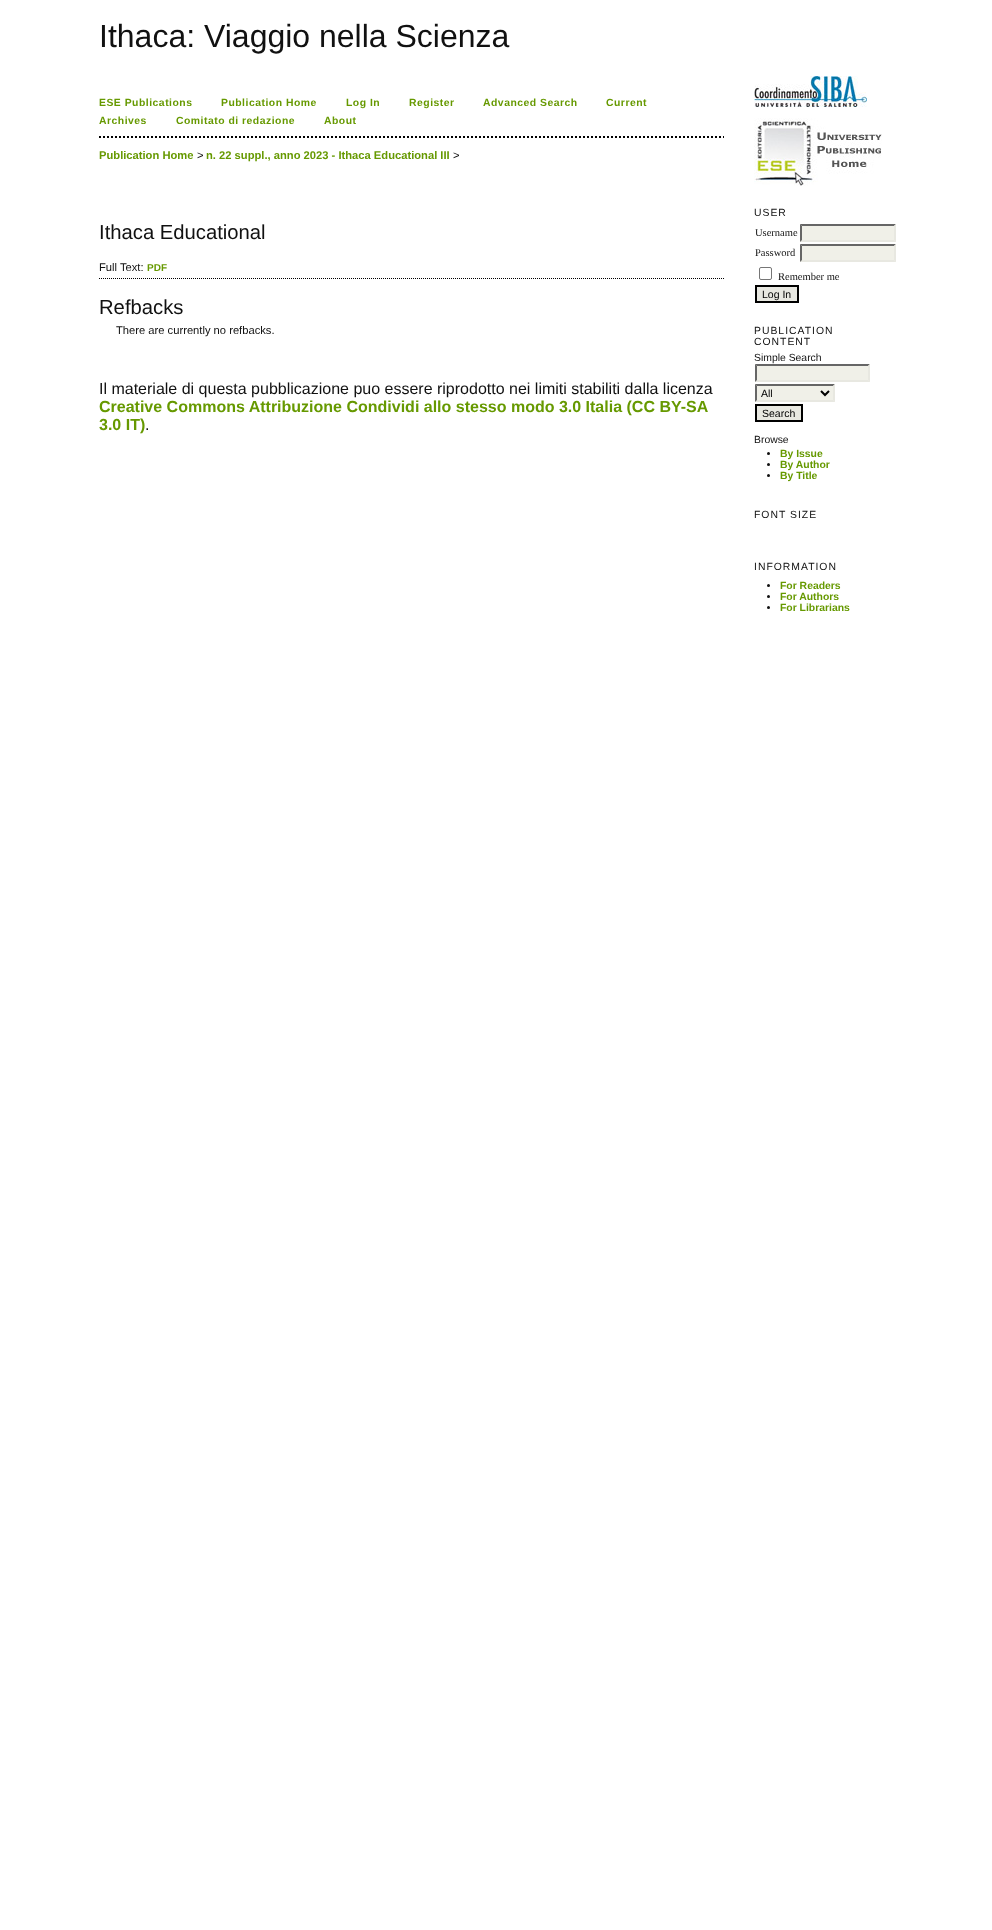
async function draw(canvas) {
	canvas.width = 992;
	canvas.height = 1930;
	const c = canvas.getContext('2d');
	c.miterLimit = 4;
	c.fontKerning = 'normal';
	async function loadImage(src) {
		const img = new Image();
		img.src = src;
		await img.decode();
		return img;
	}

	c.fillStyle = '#fff';
	c.fillRect(0, 0, 992, 1930);
	c.font = '32px Liberation Sans';
	c.fillStyle = '#111';
	c.fillText('Ithaca: Viaggio nella Scienza', 99, 47);
	c.beginPath();
	c.moveTo(99, 137);
	c.lineTo(724, 137);
	c.strokeStyle = '#000';
	c.lineWidth = 2;
	c.setLineDash([2, 2]);
	c.stroke();
	c.letterSpacing = '0.5px';
	c.font = 'bold 10.4px Liberation Sans';
	c.fillStyle = '#690';
	for (const [text, x, y] of [
		['ESE Publications', 99, 106],
		['Publication Home', 221, 106],
		['Log In', 346, 106],
		['Register', 409, 106],
		['Advanced Search', 483, 106],
		['Current', 606, 106],
		['Archives', 99, 124],
		['Comitato di redazione', 176, 124],
		['About', 324, 124],
	]) {
		c.fillText(text, x, y);
	}
	c.letterSpacing = '0px';
	c.font = 'bold 11.2px Liberation Sans';
	c.fillText('Publication Home', 99, 159);
	c.font = '11.2px Liberation Sans';
	c.fillStyle = '#111';
	c.fillText('>', 197, 159);
	c.font = 'bold 11.2px Liberation Sans';
	c.fillStyle = '#690';
	c.fillText('n. 22 suppl., anno 2023 - Ithaca Educational III', 206, 159);
	c.font = '11.2px Liberation Sans';
	c.fillStyle = '#111';
	c.fillText('>', 453, 159);
	c.font = '20.25px Liberation Sans';
	c.fillText('Ithaca Educational', 99, 239);
	c.font = '11.2px Liberation Sans';
	c.fillText('Full Text:', 99, 271);
	c.font = 'bold 10px Liberation Sans';
	c.fillStyle = '#690';
	c.fillText('PDF', 147, 271);
	c.beginPath();
	c.moveTo(99, 278.5);
	c.lineTo(724, 278.5);
	c.lineWidth = 1;
	c.setLineDash([1, 1]);
	c.stroke();
	c.font = '20.25px Liberation Sans';
	c.fillStyle = '#111';
	c.fillText('Refbacks', 99, 314);
	c.font = '11.2px Liberation Sans';
	c.fillText('There are currently no refbacks.', 116, 334);
	c.font = '16px Liberation Sans';
	c.fillText('Il materiale di questa pubblicazione puo essere riprodotto nei limiti stabiliti dalla licenza', 99, 394);
	c.font = 'bold 16px Liberation Sans';
	c.fillStyle = '#690';
	c.fillText('Creative Commons Attribuzione Condividi allo stesso modo 3.0 Italia (CC BY-SA', 99, 412);
	c.fillText('3.0 IT)', 99, 430);
	c.font = '16px Liberation Sans';
	c.fillStyle = '#111';
	c.fillText('.', 145, 430);
	c.drawImage(await loadImage('img1.png'), 754, 76, 113, 31);
	c.drawImage(await loadImage('img2.png'), 754, 118, 128, 68);
	c.letterSpacing = '1px';
	c.font = '10.4px Liberation Sans';
	c.fillText('USER', 754, 216);
	c.letterSpacing = '0px';
	c.font = '10.5px Liberation Serif';
	c.fillText('Username', 755, 236);
	c.fillStyle = '#f0f0e8';
	c.fillRect(800, 224, 96, 18);
	c.fillStyle = '#666';
	c.beginPath();
	c.moveTo(800, 224);
	c.lineTo(896, 224);
	c.lineTo(894, 226);
	c.lineTo(802, 226);
	c.closePath();
	c.fill();
	c.fillStyle = '#e8e8e1';
	c.beginPath();
	c.moveTo(896, 224);
	c.lineTo(896, 242);
	c.lineTo(894, 240);
	c.lineTo(894, 226);
	c.closePath();
	c.fill();
	c.beginPath();
	c.moveTo(896, 242);
	c.lineTo(800, 242);
	c.lineTo(802, 240);
	c.lineTo(894, 240);
	c.closePath();
	c.fill();
	c.fillStyle = '#666';
	c.beginPath();
	c.moveTo(800, 242);
	c.lineTo(800, 224);
	c.lineTo(802, 226);
	c.lineTo(802, 240);
	c.closePath();
	c.fill();
	c.fillStyle = '#111';
	c.fillText('Password', 755, 256);
	c.fillStyle = '#f0f0e8';
	c.fillRect(800, 244, 96, 18);
	c.fillStyle = '#666';
	c.beginPath();
	c.moveTo(800, 244);
	c.lineTo(896, 244);
	c.lineTo(894, 246);
	c.lineTo(802, 246);
	c.closePath();
	c.fill();
	c.fillStyle = '#e8e8e1';
	c.beginPath();
	c.moveTo(896, 244);
	c.lineTo(896, 262);
	c.lineTo(894, 260);
	c.lineTo(894, 246);
	c.closePath();
	c.fill();
	c.beginPath();
	c.moveTo(896, 262);
	c.lineTo(800, 262);
	c.lineTo(802, 260);
	c.lineTo(894, 260);
	c.closePath();
	c.fill();
	c.fillStyle = '#666';
	c.beginPath();
	c.moveTo(800, 262);
	c.lineTo(800, 244);
	c.lineTo(802, 246);
	c.lineTo(802, 260);
	c.closePath();
	c.fill();
	c.beginPath();
	c.roundRect(759.5, 267.5, 12, 12, 1.5);
	c.strokeStyle = '#767676';
	c.setLineDash([]);
	c.stroke();
	c.fillStyle = '#111';
	c.fillText('Remember me', 778, 280);
	c.fillStyle = '#e8e8e1';
	c.beginPath();
	c.rect(756, 286, 42, 16);
	c.fill();
	c.strokeStyle = '#000';
	c.lineWidth = 2;
	c.stroke();
	c.font = '10.5px Liberation Sans';
	c.fillStyle = '#000';
	c.fillText('Log In', 762, 298);
	c.letterSpacing = '1px';
	c.font = '10.4px Liberation Sans';
	c.fillStyle = '#111';
	c.fillText('PUBLICATION', 754, 334);
	c.fillText('CONTENT', 754, 345);
	c.letterSpacing = '0px';
	c.fillText('Simple Search', 754, 361);
	c.fillStyle = '#f0f0e8';
	c.fillRect(755, 364, 115, 18);
	c.fillStyle = '#666';
	c.beginPath();
	c.moveTo(755, 364);
	c.lineTo(870, 364);
	c.lineTo(868, 366);
	c.lineTo(757, 366);
	c.closePath();
	c.fill();
	c.fillStyle = '#e8e8e1';
	c.beginPath();
	c.moveTo(870, 364);
	c.lineTo(870, 382);
	c.lineTo(868, 380);
	c.lineTo(868, 366);
	c.closePath();
	c.fill();
	c.beginPath();
	c.moveTo(870, 382);
	c.lineTo(755, 382);
	c.lineTo(757, 380);
	c.lineTo(868, 380);
	c.closePath();
	c.fill();
	c.fillStyle = '#666';
	c.beginPath();
	c.moveTo(755, 382);
	c.lineTo(755, 364);
	c.lineTo(757, 366);
	c.lineTo(757, 380);
	c.closePath();
	c.fill();
	c.fillStyle = '#f0f0e8';
	c.fillRect(755, 384, 80, 18);
	c.fillStyle = '#666';
	c.beginPath();
	c.moveTo(755, 384);
	c.lineTo(835, 384);
	c.lineTo(833, 386);
	c.lineTo(757, 386);
	c.closePath();
	c.fill();
	c.fillStyle = '#e8e8e1';
	c.beginPath();
	c.moveTo(835, 384);
	c.lineTo(835, 402);
	c.lineTo(833, 400);
	c.lineTo(833, 386);
	c.closePath();
	c.fill();
	c.beginPath();
	c.moveTo(835, 402);
	c.lineTo(755, 402);
	c.lineTo(757, 400);
	c.lineTo(833, 400);
	c.closePath();
	c.fill();
	c.fillStyle = '#666';
	c.beginPath();
	c.moveTo(755, 402);
	c.lineTo(755, 384);
	c.lineTo(757, 386);
	c.lineTo(757, 400);
	c.closePath();
	c.fill();
	c.beginPath();
	c.moveTo(821, 391);
	c.lineTo(825, 395);
	c.lineTo(829, 391);
	c.stroke();
	c.font = '10.5px Liberation Sans';
	c.fillStyle = '#000';
	c.fillText('All', 761, 397);
	c.fillStyle = '#e8e8e1';
	c.beginPath();
	c.rect(756, 405, 46, 16);
	c.fill();
	c.stroke();
	c.fillStyle = '#000';
	c.fillText('Search', 762, 417);
	c.font = '10.4px Liberation Sans';
	c.fillStyle = '#111';
	c.fillText('Browse', 754, 443);
	c.beginPath();
	c.arc(768.5, 453.5, 1.5, 0, 2 * Math.PI);
	c.fill();
	c.font = 'bold 10.4px Liberation Sans';
	c.fillStyle = '#690';
	c.fillText('By Issue', 780, 457);
	c.fillStyle = '#111';
	c.beginPath();
	c.arc(768.5, 464.5, 1.5, 0, 2 * Math.PI);
	c.fill();
	c.fillStyle = '#690';
	c.fillText('By Author', 780, 468);
	c.fillStyle = '#111';
	c.beginPath();
	c.arc(768.5, 475.5, 1.5, 0, 2 * Math.PI);
	c.fill();
	c.fillStyle = '#690';
	c.fillText('By Title', 780, 479);
	c.letterSpacing = '1px';
	c.font = '10.4px Liberation Sans';
	c.fillStyle = '#111';
	c.fillText('FONT SIZE', 754, 518);
	c.fillText('INFORMATION', 754, 570);
	c.beginPath();
	c.arc(768.5, 585.5, 1.5, 0, 2 * Math.PI);
	c.fill();
	c.letterSpacing = '0px';
	c.font = 'bold 10.4px Liberation Sans';
	c.fillStyle = '#690';
	c.fillText('For Readers', 780, 589);
	c.fillStyle = '#111';
	c.beginPath();
	c.arc(768.5, 596.5, 1.5, 0, 2 * Math.PI);
	c.fill();
	c.fillStyle = '#690';
	c.fillText('For Authors', 780, 600);
	c.fillStyle = '#111';
	c.beginPath();
	c.arc(768.5, 607.5, 1.5, 0, 2 * Math.PI);
	c.fill();
	c.fillStyle = '#690';
	c.fillText('For Librarians', 780, 611);
}

draw(document.querySelector('canvas'));
